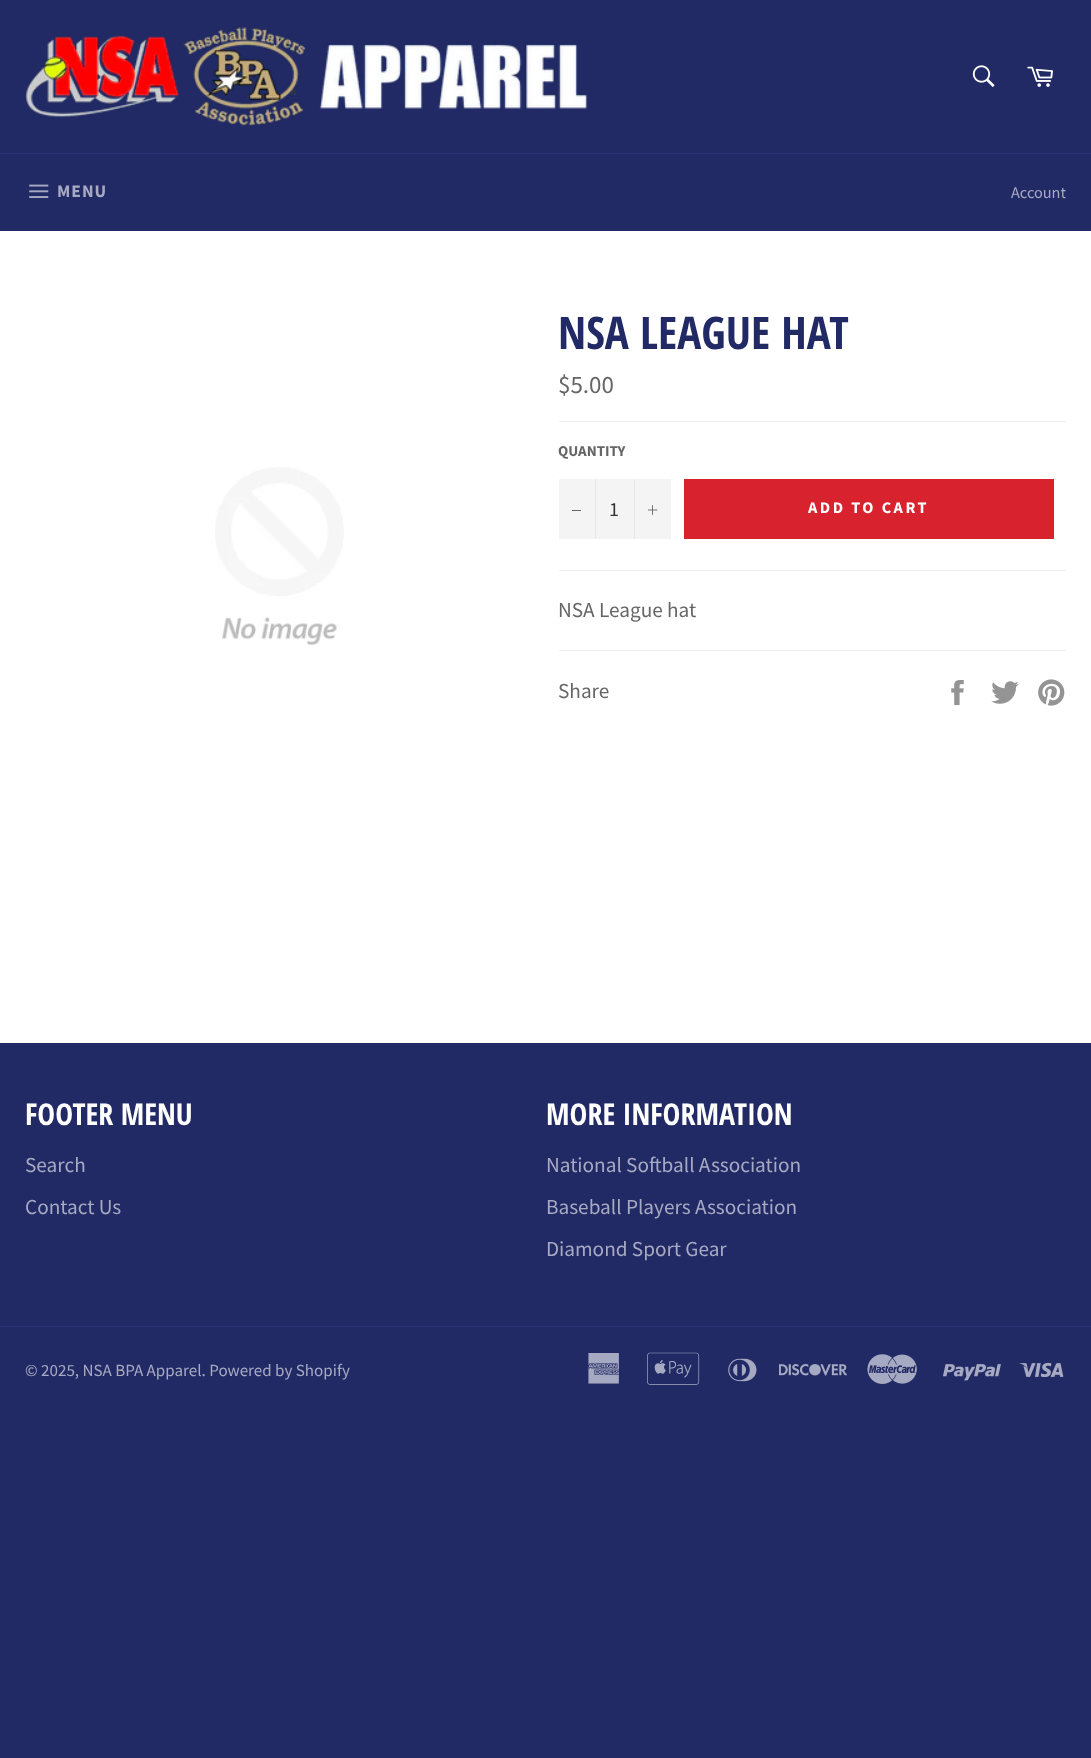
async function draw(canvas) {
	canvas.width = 1091;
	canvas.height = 1758;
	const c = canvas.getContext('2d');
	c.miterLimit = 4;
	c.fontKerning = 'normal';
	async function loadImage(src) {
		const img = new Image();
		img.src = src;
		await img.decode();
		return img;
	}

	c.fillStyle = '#222a66';
	c.fillRect(0, 0, 1091, 1758);
	c.drawImage(await loadImage('img1.png'), 25, 27, 563, 99);
	c.drawImage(await loadImage('img2.png'), 972, 65, 23, 22);
	c.drawImage(await loadImage('img3.png'), 1027, 66, 26, 21);
	c.fillStyle = '#283279';
	c.fillRect(0, 153, 1091, 1);
	c.drawImage(await loadImage('img4.png'), 29, 184, 20, 14);
	c.letterSpacing = '1px';
	c.font = 'bold 17.5px Source Sans Pro';
	c.fillStyle = '#a7aac2';
	c.fillText('MENU', 57, 197);
	c.letterSpacing = '0px';
	c.font = '16.25px Source Sans Pro';
	c.fillText('Account', 1011, 198);
	c.fillStyle = '#fff';
	c.fillRect(0, 231, 1091, 812);
	c.drawImage(await loadImage('img5.png'), 215, 467, 129, 178);
	c.font = 'bold 45px Open Sans Condensed';
	c.fillStyle = '#222a66';
	c.fillText('NSA LEAGUE HAT', 558, 349);
	c.font = '25px Source Sans Pro';
	c.fillStyle = '#666';
	c.fillText('$5.00', 558, 393);
	c.fillStyle = '#f0f0f0';
	c.fillRect(559, 421, 507, 1);
	c.font = 'bold 15px Source Sans Pro';
	c.fillStyle = '#666';
	c.fillText('QUANTITY', 558, 456);
	for (const [x, y, w, h, color] of [
		[559, 479, 112, 60, '#f4f4f4'],
		[595, 479, 1, 60, '#e7e7e7'],
		[572, 510, 9, 1, '#666'],
	]) {
		c.fillStyle = color;
		c.fillRect(x, y, w, h);
	}
	c.font = '20px Source Sans Pro';
	c.fillStyle = '#333';
	c.fillText('1', 609, 516);
	c.fillStyle = '#e7e7e7';
	c.fillRect(634, 479, 1, 60);
	c.drawImage(await loadImage('img6.png'), 648, 505, 10, 10);
	c.fillStyle = '#d8232f';
	c.fillRect(684, 479, 370, 60);
	c.letterSpacing = '2.5px';
	c.font = 'bold 16.25px Source Sans Pro';
	c.fillStyle = '#fff';
	c.fillText('ADD TO CART', 808, 513);
	c.fillStyle = '#f0f0f0';
	c.fillRect(559, 570, 507, 1);
	c.letterSpacing = '0px';
	c.font = '21.25px Source Sans Pro';
	c.fillStyle = '#666';
	c.fillText('NSA League hat', 558, 617);
	c.fillStyle = '#f0f0f0';
	c.fillRect(559, 650, 507, 1);
	c.fillStyle = '#666';
	c.fillText('Share', 558, 698);
	c.drawImage(await loadImage('img7.png'), 951, 680, 13, 25);
	c.drawImage(await loadImage('img8.png'), 991, 681, 28, 23);
	c.drawImage(await loadImage('img9.png'), 1038, 679, 27, 27);
	c.font = 'bold 30px Open Sans Condensed';
	c.fillStyle = '#fff';
	c.fillText('FOOTER MENU', 25, 1125);
	c.font = '21.25px Source Sans Pro';
	c.fillStyle = '#a7aac2';
	c.fillText('Search', 25, 1172);
	c.fillText('Contact Us', 25, 1214);
	c.font = 'bold 30px Open Sans Condensed';
	c.fillStyle = '#fff';
	c.fillText('MORE INFORMATION', 546, 1125);
	c.font = '21.25px Source Sans Pro';
	c.fillStyle = '#a7aac2';
	for (const [text, x, y] of [
		['National Softball Association', 546, 1172],
		['Baseball Players Association', 546, 1214],
		['Diamond Sport Gear', 546, 1256],
	]) {
		c.fillText(text, x, y);
	}
	c.fillStyle = '#283279';
	c.fillRect(0, 1326, 1091, 1);
	c.font = '17px Source Sans Pro';
	c.fillStyle = '#a7aac2';
	c.fillText('© 2025, NSA BPA Apparel. Powered by Shopify', 25, 1376);
	c.drawImage(await loadImage('img10.png'), 588, 1353, 31, 31);
	c.drawImage(await loadImage('img11.png'), 647, 1352, 53, 33);
	c.drawImage(await loadImage('img12.png'), 728, 1358, 29, 24);
	c.drawImage(await loadImage('img13.png'), 779, 1364, 69, 12);
	c.drawImage(await loadImage('img14.png'), 867, 1354, 50, 30);
	c.drawImage(await loadImage('img15.png'), 943, 1364, 58, 17);
	c.drawImage(await loadImage('img16.png'), 1019, 1362, 45, 16);
}

draw(document.querySelector('canvas'));
